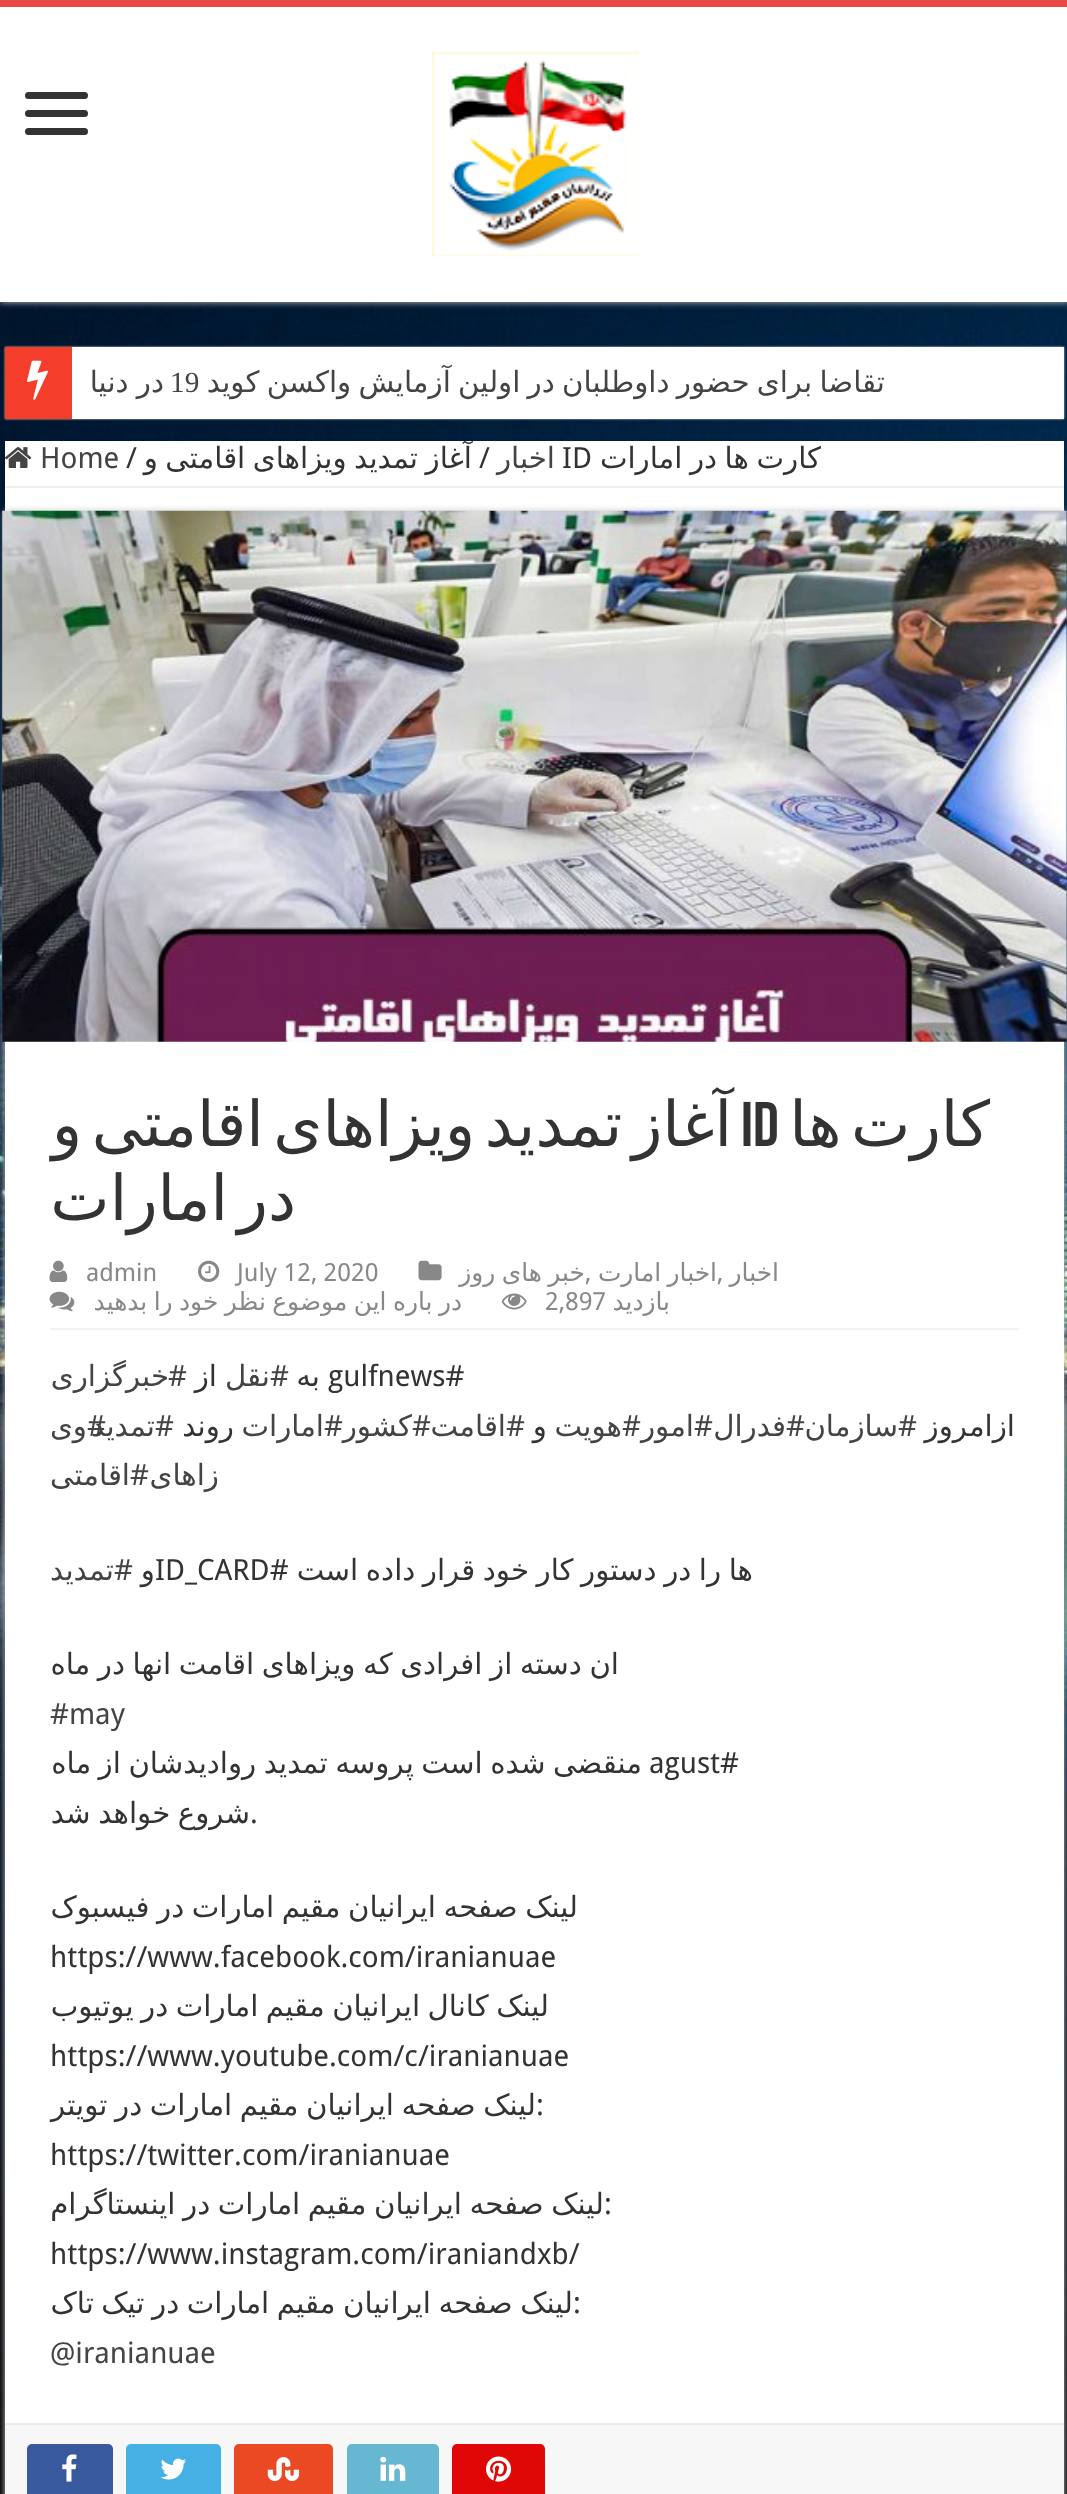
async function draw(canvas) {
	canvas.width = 1067;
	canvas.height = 2494;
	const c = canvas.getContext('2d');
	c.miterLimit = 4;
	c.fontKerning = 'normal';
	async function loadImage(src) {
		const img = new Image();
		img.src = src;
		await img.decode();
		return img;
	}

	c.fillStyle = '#fff';
	c.fillRect(0, 0, 1067, 2494);
	c.drawImage(await loadImage('img1.png'), 0, 302, 1067, 2192);
	c.fillStyle = '#cacaca';
	c.filter = 'blur(3.5px)';
	c.beginPath();
	c.rect(0, 0, 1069, 302);
	c.fill();
	c.filter = 'none';
	c.fillStyle = '#fff';
	c.fillRect(0, 7, 1067, 295);
	c.fillStyle = '#e64946';
	c.fillRect(0, 0, 1067, 7);
	c.drawImage(await loadImage('img2.png'), 432, 51, 207, 206);
	c.fillStyle = '#333';
	c.beginPath();
	c.roundRect(25, 92, 63, 7, 3.5);
	c.fill();
	c.beginPath();
	c.roundRect(25, 110, 63, 7, 3.5);
	c.fill();
	c.beginPath();
	c.roundRect(25, 128, 63, 7, 3.5);
	c.fill();
	c.fillStyle = '#cacaca';
	c.filter = 'blur(1px)';
	c.beginPath();
	c.rect(5, 347, 1059, 72);
	c.fill();
	c.filter = 'none';
	c.fillStyle = '#fff';
	c.fillRect(72, 347, 992, 72);
	c.wordSpacing = '-2px';
	c.direction = 'rtl';
	c.font = '29.25px DejaVu Sans';
	c.fillStyle = '#444';
	c.fillText('تقاضا برای حضور داوطلبان در اولین آزمایش واکسن کوید', 885, 392);
	c.wordSpacing = '0px';
	c.direction = 'ltr';
	c.font = '29.25px Liberation Serif';
	c.fillText('19', 170, 392);
	c.wordSpacing = '-1px';
	c.direction = 'rtl';
	c.font = '29.25px DejaVu Sans';
	c.fillText('در دنیا', 164, 392);
	c.fillStyle = '#f43d2a';
	c.fillRect(5, 347, 67, 72);
	c.drawImage(await loadImage('img3.png'), 27, 360, 21, 40);
	c.fillStyle = '#fff';
	c.fillRect(5, 441, 1059, 1982);
	c.fillStyle = '#eee';
	c.fillRect(5, 486, 1059, 2);
	c.wordSpacing = '-1.75px';
	c.fillStyle = '#333';
	c.fillText('کارت ها در امارات', 821, 468);
	c.wordSpacing = '0px';
	c.direction = 'ltr';
	c.font = '29.25px Droid Sans';
	c.fillText('ID', 562, 468);
	c.direction = 'rtl';
	c.font = '29.25px DejaVu Sans';
	c.fillStyle = '#444';
	c.fillText('اخبار', 555, 468);
	c.direction = 'ltr';
	c.font = '29.25px Droid Sans';
	c.fillStyle = '#333';
	c.fillText('/', 479, 468);
	c.wordSpacing = '-1.75px';
	c.direction = 'rtl';
	c.font = '29.25px DejaVu Sans';
	c.fillText('آغاز تمدید ویزاهای اقامتی و', 472, 468);
	c.wordSpacing = '0px';
	c.direction = 'ltr';
	c.font = '29.25px Droid Sans';
	c.fillText('/', 126, 468);
	c.fillStyle = '#444';
	c.fillText('Home', 40, 468);
	c.drawImage(await loadImage('img4.png'), 5, 447, 27, 21);
	c.save();
	c.beginPath();
	c.moveTo(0, 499);
	c.lineTo(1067, 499);
	c.lineTo(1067, 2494);
	c.lineTo(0, 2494);
	c.closePath();
	c.moveTo(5, 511);
	c.lineTo(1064, 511);
	c.lineTo(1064, 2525);
	c.lineTo(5, 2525);
	c.closePath();
	c.clip('evenodd');
	c.fillStyle = '#cacaca';
	c.filter = 'blur(3.5px)';
	c.beginPath();
	c.rect(5, 511, 1059, 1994);
	c.fill();
	c.filter = 'none';
	c.restore();
	c.drawImage(await loadImage('img5.png'), 2, 510, 1065, 532);
	c.wordSpacing = '-10.5px';
	c.direction = 'rtl';
	c.font = '63px DejaVu Sans';
	c.fillStyle = '#333';
	c.fillText('کارت ها', 990, 1146);
	c.fillText('آغاز تمدید ویزاهای اقامتی و', 732, 1146);
	c.wordSpacing = '0px';
	c.direction = 'ltr';
	c.font = 'bold 63px Bebas Neue';
	c.fillText('ID', 741, 1146);
	c.wordSpacing = '-10.5px';
	c.direction = 'rtl';
	c.font = '63px DejaVu Sans';
	c.fillText('در امارات', 296, 1220);
	c.fillStyle = '#f2f2f2';
	c.fillRect(50, 1328, 969, 2);
	c.wordSpacing = '0px';
	c.font = '24.9px DejaVu Sans';
	c.fillStyle = '#888';
	c.fillText('اخبار', 779, 1281);
	c.direction = 'ltr';
	c.font = '24.9px Droid Sans';
	c.fillText(',', 717, 1281);
	c.wordSpacing = '-1.5px';
	c.direction = 'rtl';
	c.font = '24.9px DejaVu Sans';
	c.fillText('اخبار امارت', 717, 1281);
	c.wordSpacing = '0px';
	c.direction = 'ltr';
	c.font = '24.9px Droid Sans';
	c.fillText(',', 585, 1281);
	c.wordSpacing = '-1.5px';
	c.direction = 'rtl';
	c.font = '24.9px DejaVu Sans';
	c.fillText('خبر های روز', 585, 1281);
	c.drawImage(await loadImage('img6.png'), 418, 1260, 24, 21);
	c.wordSpacing = '0px';
	c.direction = 'ltr';
	c.font = '24.9px Droid Sans';
	c.fillText('July 12, 2020', 237, 1281);
	c.drawImage(await loadImage('img7.png'), 198, 1260, 22, 22);
	c.fillText('admin', 86, 1281);
	c.drawImage(await loadImage('img8.png'), 49, 1260, 19, 22);
	c.direction = 'rtl';
	c.font = '24.9px DejaVu Sans';
	c.fillText('بازدید', 670, 1310);
	c.direction = 'ltr';
	c.font = '24.9px Droid Sans';
	c.fillText('2,897', 545, 1310);
	c.drawImage(await loadImage('img9.png'), 501, 1293, 26, 17);
	c.wordSpacing = '-1.5px';
	c.direction = 'rtl';
	c.font = '24.9px DejaVu Sans';
	c.fillText('در باره این موضوع نظر خود را بدهید', 462, 1310);
	c.drawImage(await loadImage('img10.png'), 49, 1291, 26, 21);
	c.wordSpacing = '0px';
	c.direction = 'ltr';
	c.font = '29.25px Droid Sans';
	c.fillStyle = '#333';
	c.fillText('gulfnews#', 328, 1386);
	c.direction = 'rtl';
	c.font = '29.25px DejaVu Sans';
	c.fillText('به', 320, 1386);
	c.font = '29.25px Droid Sans';
	c.fillStyle = '#444';
	c.fillText('#', 289, 1386);
	c.font = '29.25px DejaVu Sans';
	c.fillText('نقل', 270, 1386);
	c.fillStyle = '#333';
	c.fillText('از‌', 217, 1386);
	c.font = '29.25px Droid Sans';
	c.fillStyle = '#444';
	c.fillText('#', 187, 1386);
	c.font = '29.25px DejaVu Sans';
	c.fillText('خبرگزاری', 169, 1386);
	c.fillStyle = '#333';
	c.fillText('ازامروز', 1015, 1436);
	c.font = '29.25px Droid Sans';
	c.fillStyle = '#444';
	c.fillText('#', 917, 1436);
	c.font = '29.25px DejaVu Sans';
	c.fillText('سازمان', 898, 1436);
	c.font = '29.25px Droid Sans';
	c.fillText('#', 805, 1436);
	c.font = '29.25px DejaVu Sans';
	c.fillText('فدرال', 786, 1436);
	c.font = '29.25px Droid Sans';
	c.fillText('#', 713, 1436);
	c.font = '29.25px DejaVu Sans';
	c.fillText('امور', 694, 1436);
	c.font = '29.25px Droid Sans';
	c.fillText('#', 641, 1436);
	c.fillText('#', 525, 1436);
	c.font = '29.25px DejaVu Sans';
	c.fillText('اقامت', 506, 1436);
	c.font = '29.25px Droid Sans';
	c.fillText('#', 431, 1436);
	c.font = '29.25px DejaVu Sans';
	c.fillText('کشور', 412, 1436);
	c.font = '29.25px Droid Sans';
	c.fillText('#', 343, 1436);
	c.font = '29.25px DejaVu Sans';
	c.fillText('امارات', 324, 1436);
	c.font = '29.25px Droid Sans';
	c.fillText('#', 174, 1436);
	c.font = '29.25px DejaVu Sans';
	c.fillText('تمدید', 155, 1436);
	c.font = '29.25px Droid Sans';
	c.fillText('#', 106, 1436);
	c.font = '29.25px DejaVu Sans';
	c.fillText('هویت', 622, 1436);
	c.fillStyle = '#333';
	c.fillText('و', 547, 1436);
	c.fillText('روند', 234, 1436);
	c.fillStyle = '#444';
	c.fillText('وی', 87, 1436);
	c.fillText('زاهای', 219, 1485);
	c.font = '29.25px Droid Sans';
	c.fillText('#', 149, 1485);
	c.font = '29.25px DejaVu Sans';
	c.fillText('اقامتی', 130, 1485);
	c.wordSpacing = '-1.75px';
	c.fillStyle = '#333';
	c.fillText('ها را در دستور کار خود قرار داده است', 753, 1580);
	c.wordSpacing = '0px';
	c.direction = 'ltr';
	c.font = '29.25px Droid Sans';
	c.fillText('ID_CARD#', 155, 1580);
	c.direction = 'rtl';
	c.font = '29.25px DejaVu Sans';
	c.fillText('و', 155, 1580);
	c.font = '29.25px Droid Sans';
	c.fillStyle = '#444';
	c.fillText('#', 133, 1580);
	c.font = '29.25px DejaVu Sans';
	c.fillText('تمدید', 114, 1580);
	c.wordSpacing = '-1.75px';
	c.fillStyle = '#333';
	c.fillText('ان دسته از افرادی که ویزاهای اقامت انها در ماه', 619, 1674);
	c.wordSpacing = '0px';
	c.direction = 'ltr';
	c.font = '29.25px Droid Sans';
	c.fillStyle = '#444';
	c.fillText('#may', 50, 1724);
	c.wordSpacing = '-1.75px';
	c.direction = 'rtl';
	c.font = '29.25px DejaVu Sans';
	c.fillStyle = '#333';
	c.fillText('منقضی شده است پروسه تمدید روادیدشان از ماه', 642, 1773);
	c.wordSpacing = '0px';
	c.direction = 'ltr';
	c.font = '29.25px Droid Sans';
	c.fillText('agust#', 649, 1773);
	c.fillText('.', 250, 1823);
	c.wordSpacing = '-1.75px';
	c.direction = 'rtl';
	c.font = '29.25px DejaVu Sans';
	c.fillText('شروع خواهد شد', 250, 1823);
	c.fillText('لینک صفحه ایرانیان مقیم امارات در فیسبوک', 578, 1917);
	c.wordSpacing = '0px';
	c.direction = 'ltr';
	c.font = '29.25px Droid Sans';
	c.fillText('https://www.facebook.com/iranianuae', 50, 1967);
	c.wordSpacing = '-1.75px';
	c.direction = 'rtl';
	c.font = '29.25px DejaVu Sans';
	c.fillText('لینک کانال ایرانیان مقیم امارات در یوتیوب', 549, 2016);
	c.wordSpacing = '0px';
	c.direction = 'ltr';
	c.font = '29.25px Droid Sans';
	c.fillText('https://www.youtube.com/c/iranianuae', 50, 2066);
	c.wordSpacing = '-1.75px';
	c.direction = 'rtl';
	c.font = '29.25px DejaVu Sans';
	c.fillText('لینک صفحه ایرانیان مقیم امارات در تویتر', 536, 2115);
	c.wordSpacing = '0px';
	c.direction = 'ltr';
	c.font = '29.25px Droid Sans';
	c.fillText(':', 536, 2115);
	c.fillText('https://twitter.com/iranianuae', 50, 2165);
	c.wordSpacing = '-1.75px';
	c.direction = 'rtl';
	c.font = '29.25px DejaVu Sans';
	c.fillText('لینک صفحه ایرانیان مقیم امارات در اینستاگرام', 604, 2214);
	c.wordSpacing = '0px';
	c.direction = 'ltr';
	c.font = '29.25px Droid Sans';
	c.fillText(':', 604, 2214);
	c.fillText('https://www.instagram.com/iraniandxb/', 50, 2264);
	c.wordSpacing = '-1.75px';
	c.direction = 'rtl';
	c.font = '29.25px DejaVu Sans';
	c.fillText('لینک صفحه ایرانیان مقیم امارات در تیک تاک', 573, 2313);
	c.wordSpacing = '0px';
	c.direction = 'ltr';
	c.font = '29.25px Droid Sans';
	c.fillText(':', 573, 2313);
	c.fillStyle = '#444';
	c.fillText('@iranianuae', 50, 2363);
	c.fillStyle = '#f7f7f7';
	c.fillRect(5, 2425, 1059, 69);
	c.fillStyle = '#eaeaea';
	c.fillRect(5, 2423, 1059, 2);
	c.fillStyle = '#e00707';
	c.beginPath();
	c.roundRect(452, 2444, 93, 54, 5);
	c.fill();
	c.drawImage(await loadImage('img11.png'), 486, 2456, 26, 26);
	c.fillStyle = '#65b7d2';
	c.beginPath();
	c.roundRect(347, 2444, 92, 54, 5);
	c.fill();
	c.drawImage(await loadImage('img12.png'), 380, 2456, 26, 25);
	c.fillStyle = '#eb4924';
	c.beginPath();
	c.roundRect(234, 2444, 99, 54, 5);
	c.fill();
	c.drawImage(await loadImage('img13.png'), 267, 2457, 33, 24);
	c.fillStyle = '#45b0e3';
	c.beginPath();
	c.roundRect(126, 2444, 95, 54, 5);
	c.fill();
	c.drawImage(await loadImage('img14.png'), 160, 2458, 26, 22);
	c.fillStyle = '#39599f';
	c.beginPath();
	c.roundRect(27, 2444, 86, 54, 5);
	c.fill();
	c.drawImage(await loadImage('img15.png'), 62, 2454, 15, 28);
}

draw(document.querySelector('canvas'));
